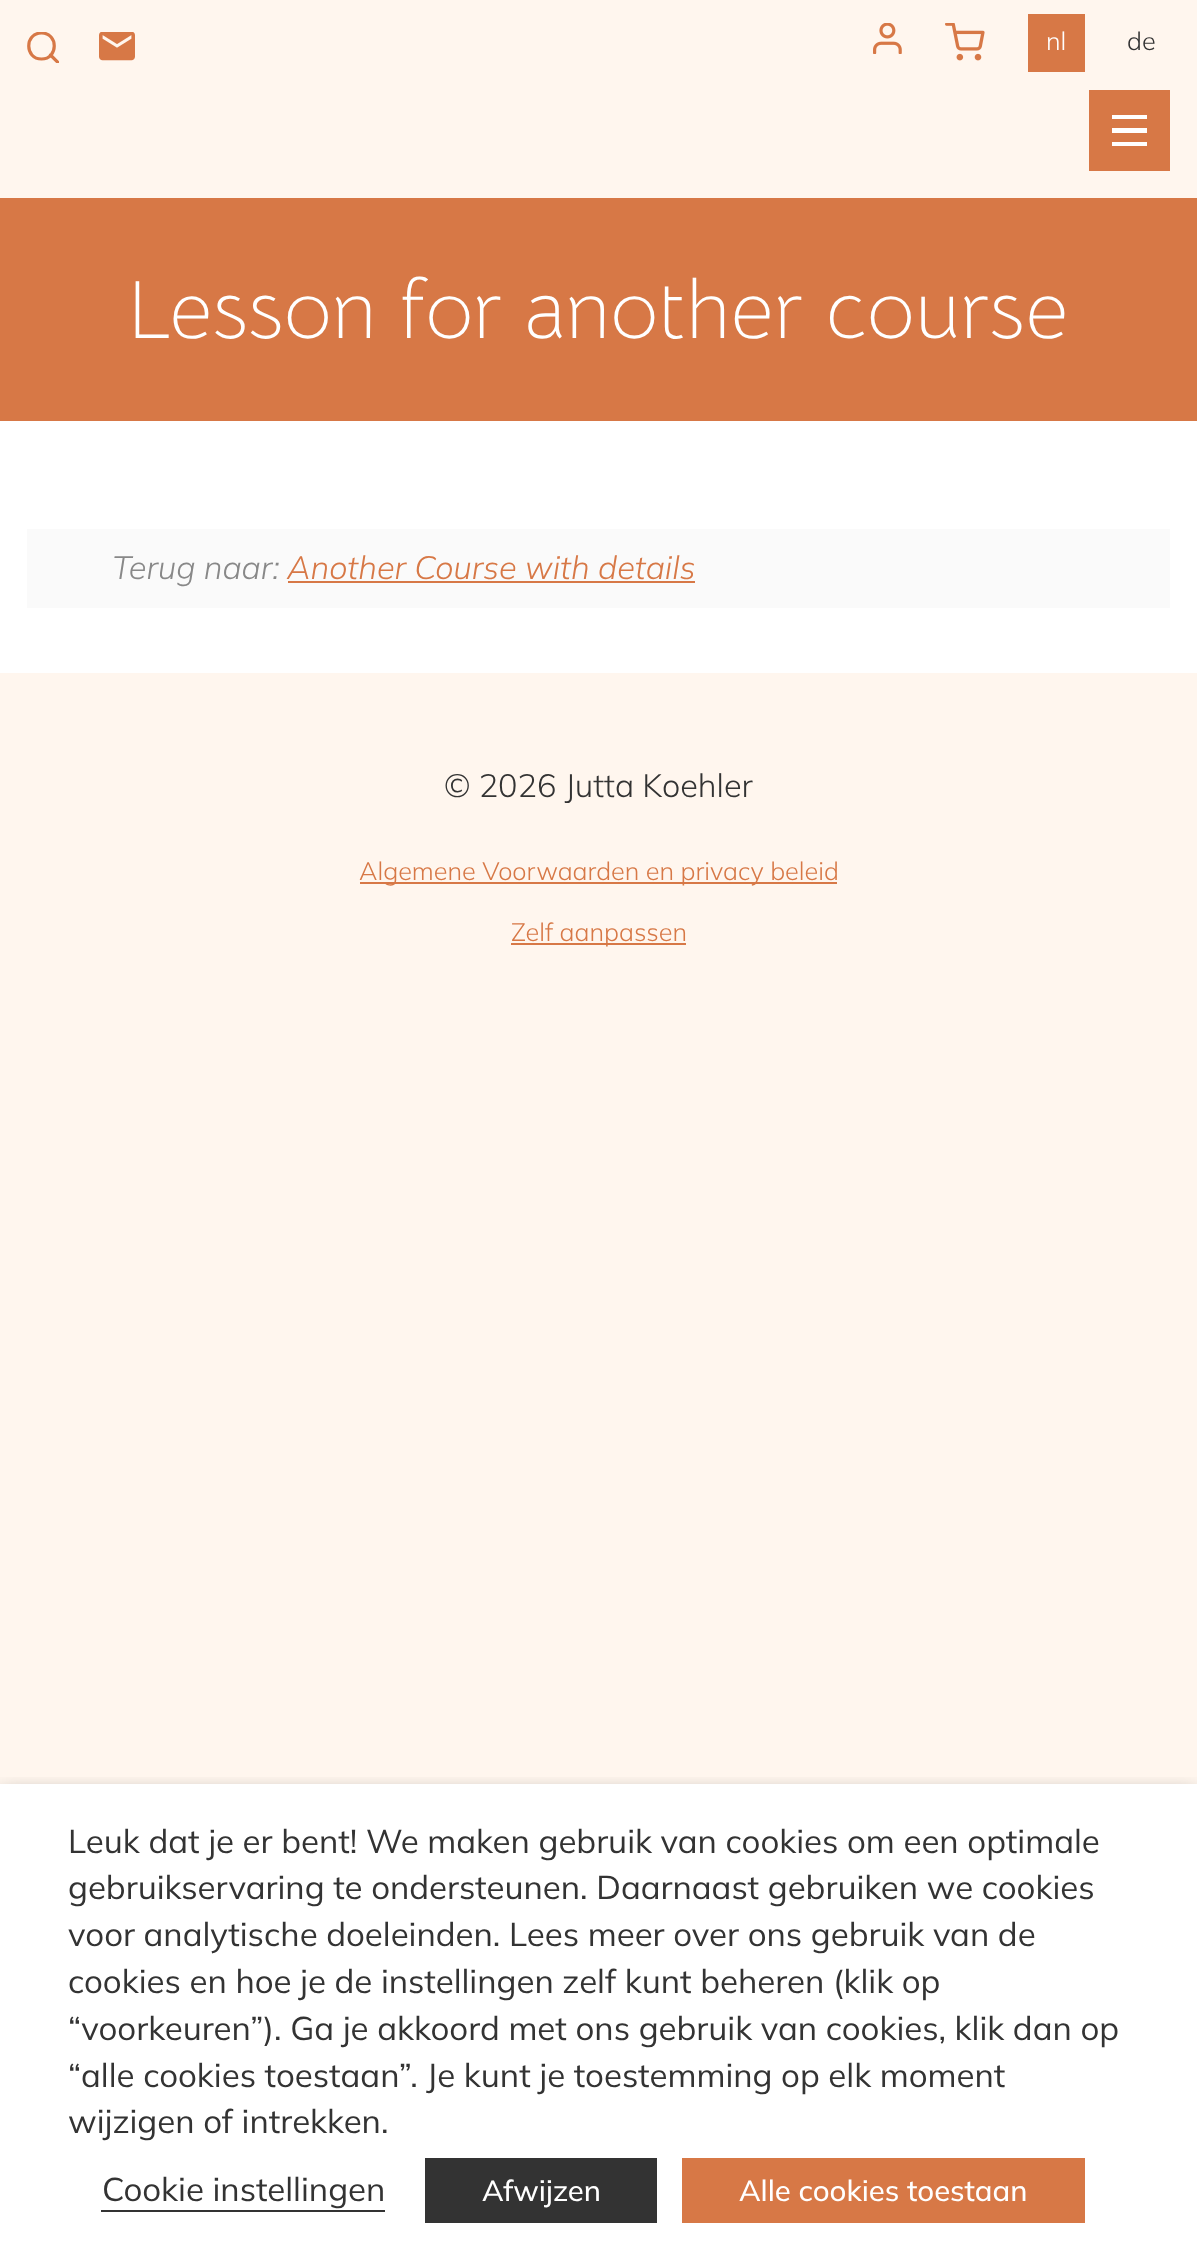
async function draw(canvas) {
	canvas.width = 1197;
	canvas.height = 2268;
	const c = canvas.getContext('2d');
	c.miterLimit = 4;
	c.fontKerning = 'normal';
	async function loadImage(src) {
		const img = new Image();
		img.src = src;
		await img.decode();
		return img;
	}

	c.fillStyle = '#fff6ee';
	c.fillRect(0, 0, 1197, 2268);
	c.fillStyle = '#fff';
	c.fillRect(0, 421, 1197, 252);
	c.save();
	c.beginPath();
	c.rect(27, 32, 32, 31);
	c.clip();
	c.beginPath();
	c.moveTo(41.5, 59);
	c.bezierCurveTo(58.5, 59, 58.5, 33, 41.5, 33);
	c.bezierCurveTo(24.5, 33, 24.5, 59, 41.5, 59);
	c.closePath();
	c.moveTo(58, 62.5);
	c.lineTo(50.5, 55);
	c.strokeStyle = '#d77846';
	c.lineWidth = 3.2;
	c.lineCap = 'round';
	c.lineJoin = 'round';
	c.stroke();
	c.restore();
	c.drawImage(await loadImage('img1.png'), 99, 32, 36, 29);
	c.drawImage(await loadImage('img2.png'), 873, 23, 29, 31);
	c.drawImage(await loadImage('img3.png'), 945, 23, 40, 38);
	c.fillStyle = '#d77846';
	c.fillRect(1028, 14, 57, 58);
	c.font = '300 25.25px Mulish';
	c.fillStyle = '#fff';
	c.fillText('nl', 1046, 50);
	c.fillStyle = '#333';
	c.fillText('de', 1127, 50);
	for (const [x, y, w, h, color] of [
		[1089, 90, 81, 81, '#d77846'],
		[1112, 142, 35, 4, '#fff'],
		[1112, 128, 35, 5, '#fff'],
		[1112, 115, 35, 4, '#fff'],
		[0, 198, 1197, 223, '#d77846'],
	]) {
		c.fillStyle = color;
		c.fillRect(x, y, w, h);
	}
	c.letterSpacing = '0.45px';
	c.font = '300 82.75px Bellota Text';
	c.fillStyle = '#fff';
	c.fillText('Lesson for another course', 127, 338);
	c.fillStyle = '#fafafa';
	c.fillRect(27, 529, 1143, 79);
	c.letterSpacing = '0px';
	c.font = 'italic 300 32.4px Mulish';
	c.fillStyle = '#888';
	c.fillText('Terug naar:', 112, 579);
	c.fillStyle = '#d77846';
	c.fillText('Another Course with details', 287, 579);
	c.fillRect(288, 581, 407, 2);
	c.font = '300 32.4px Mulish';
	c.fillStyle = '#333';
	c.fillText('© 2026 Jutta Koehler', 444, 797);
	c.fillStyle = '#d77846';
	c.fillRect(360, 882, 477, 2);
	c.font = '300 25.25px Mulish';
	c.fillText('Algemene Voorwaarden en privacy beleid', 359, 880);
	c.fillRect(511, 943, 175, 2);
	c.fillText('Zelf aanpassen', 511, 941);
	c.save();
	c.beginPath();
	c.rect(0, 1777, 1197, 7);
	c.clip();
	c.fillStyle = '#00000080';
	c.filter = 'blur(11px)';
	c.beginPath();
	c.rect(0, 1796, 1197, 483);
	c.fill();
	c.filter = 'none';
	c.restore();
	c.fillStyle = '#fffffff7';
	c.fillRect(0, 1784, 1197, 484);
	c.font = '33px Mulish';
	c.fillStyle = '#333';
	for (const [text, x, y] of [
		['Leuk dat je er bent! We maken gebruik van cookies om een optimale', 68, 1853],
		['gebruikservaring te ondersteunen. Daarnaast gebruiken we cookies', 68, 1899],
		['voor analytische doeleinden. Lees meer over ons gebruik van de', 68, 1946],
		['cookies en hoe je de instellingen zelf kunt beheren (klik op', 68, 1993],
		['“voorkeuren”). Ga je akkoord met ons gebruik van cookies, klik dan op', 68, 2040],
		['“alle cookies toestaan”. Je kunt je toestemming op elk moment', 68, 2087],
		['wijzigen of intrekken.', 68, 2133],
		['Cookie instellingen', 102, 2201],
	]) {
		c.fillText(text, x, y);
	}
	c.fillRect(101, 2210, 284, 2);
	c.fillRect(425, 2158, 232, 65);
	c.font = '500 29.25px Mulish';
	c.fillStyle = '#fff';
	c.fillText('Afwijzen', 482, 2201);
	c.fillStyle = '#d77846';
	c.fillRect(682, 2158, 403, 65);
	c.fillStyle = '#fff';
	c.fillText('Alle cookies toestaan', 739, 2201);
}

draw(document.querySelector('canvas'));
